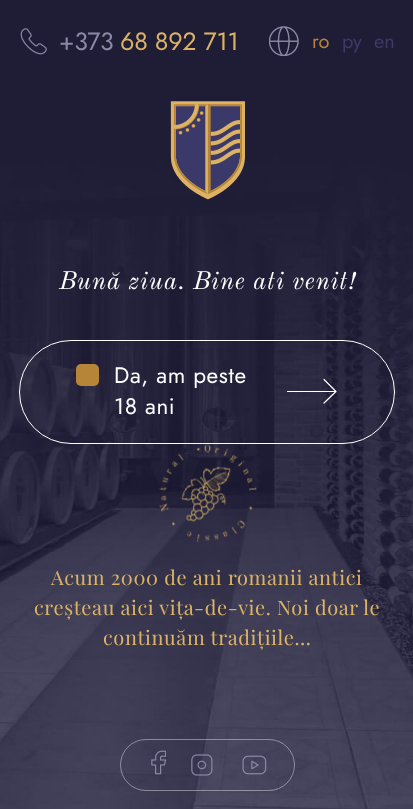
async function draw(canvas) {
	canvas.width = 413;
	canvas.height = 809;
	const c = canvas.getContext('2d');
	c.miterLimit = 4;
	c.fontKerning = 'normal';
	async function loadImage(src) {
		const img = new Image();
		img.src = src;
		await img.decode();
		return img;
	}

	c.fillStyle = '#fff';
	c.fillRect(0, 0, 413, 809);
	c.drawImage(await loadImage('img1.png'), 0, 0, 413, 809);
	c.drawImage(await loadImage('img2.png'), 20, 28, 27, 27);
	c.letterSpacing = '-0.25px';
	c.font = '25px Jost';
	c.fillStyle = '#8988a6';
	c.fillText('+373', 59, 50);
	c.fillStyle = '#dcb364';
	c.fillText('68 892 711', 120, 50);
	c.beginPath();
	c.roundRect(120.5, 739.5, 174, 51, 25.5);
	c.strokeStyle = '#ffffff66';
	c.stroke();
	c.drawImage(await loadImage('img3.png'), 151, 750, 15, 25);
	c.drawImage(await loadImage('img4.png'), 191, 754, 22, 22);
	c.drawImage(await loadImage('img5.png'), 242, 755, 25, 20);
	c.drawImage(await loadImage('img6.png'), 269, 26, 30, 30);
	c.letterSpacing = '0px';
	c.font = '20px Jost';
	c.fillStyle = '#b68538';
	c.fillText('ro', 312, 48);
	c.fillStyle = '#3b396a';
	c.fillText('ру', 342, 48);
	c.fillText('en', 374, 48);
	c.drawImage(await loadImage('img7.png'), 170, 101, 75, 99);
	c.letterSpacing = '0.6px';
	c.font = 'italic 25px Old Standard TT';
	c.fillStyle = '#fff';
	c.fillText('Bună ziua. Bine ati venit!', 59, 289);
	c.beginPath();
	c.roundRect(19.5, 340.5, 375, 103, 51.5);
	c.strokeStyle = '#fff';
	c.stroke();
	c.fillStyle = '#b68538';
	c.beginPath();
	c.roundRect(76, 364, 23, 22, 5);
	c.fill();
	c.font = '22.5px Jost';
	c.fillStyle = '#fff';
	c.fillText('Da, am peste', 114, 383);
	c.fillText('18 ani', 114, 414);
	c.beginPath();
	c.moveTo(287.5, 391.5);
	c.lineTo(336, 391.5);
	c.moveTo(336, 391.5);
	c.lineTo(324, 379.5);
	c.moveTo(336, 391.5);
	c.lineTo(324, 403);
	c.lineWidth = 1.2;
	c.lineCap = 'round';
	c.lineJoin = 'round';
	c.stroke();
	c.drawImage(await loadImage('img8.png'), 159, 444, 98, 98);
	c.font = '20px Playfair Display';
	c.fillStyle = '#dcb364';
	for (const [text, x, y] of [
		['Acum 2000 de ani romanii antici', 51, 585],
		['creșteau aici vița-de-vie. Noi doar le', 34, 615],
		['continuăm tradițiile…', 103, 645],
	]) {
		c.fillText(text, x, y);
	}
}

draw(document.querySelector('canvas'));
